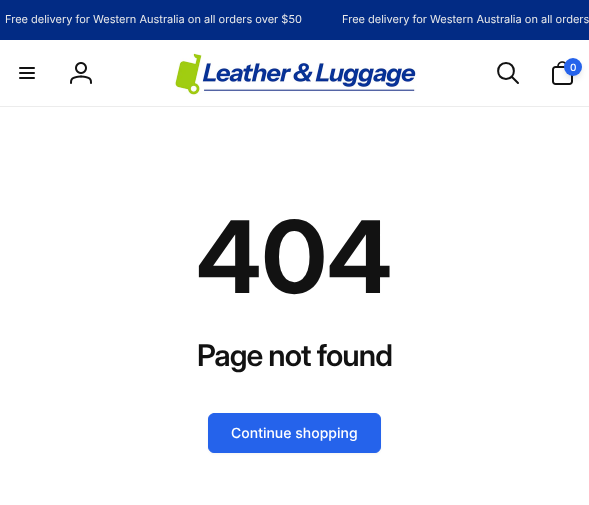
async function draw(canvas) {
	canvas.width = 589;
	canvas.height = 505;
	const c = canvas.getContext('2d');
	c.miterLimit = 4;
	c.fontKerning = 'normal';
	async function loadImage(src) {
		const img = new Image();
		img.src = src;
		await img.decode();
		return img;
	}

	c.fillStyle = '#fff';
	c.fillRect(0, 0, 589, 505);
	c.fillStyle = '#022b84';
	c.fillRect(0, 0, 589, 40);
	c.font = '11px Inter';
	c.fillStyle = '#eaeaea';
	c.fillText('Free delivery for Western Australia on all orders over $50', 5, 23);
	c.fillText('Free delivery for Western Australia on all orders', 342, 23);
	c.fillStyle = '#ececec';
	c.fillRect(0, 106, 589, 1);
	c.drawImage(await loadImage('img1.png'), 19, 67, 16, 12);
	c.drawImage(await loadImage('img2.png'), 70, 62, 22, 22);
	c.drawImage(await loadImage('img3.png'), 174, 53, 243, 43);
	c.beginPath();
	c.moveTo(518, 83);
	c.lineTo(511.5, 76.5);
	c.moveTo(506, 79);
	c.bezierCurveTo(516.5, 79, 516.5, 63, 506, 63);
	c.bezierCurveTo(495.5, 63, 495.5, 79, 506, 79);
	c.closePath();
	c.strokeStyle = '#121212';
	c.lineWidth = 2;
	c.lineCap = 'round';
	c.lineJoin = 'round';
	c.stroke();
	c.drawImage(await loadImage('img4.png'), 552, 61, 21, 24);
	c.fillStyle = '#1212120f';
	c.filter = 'blur(2px)';
	c.beginPath();
	c.roundRect(565, 61, 16, 16, 8);
	c.fill();
	c.filter = 'none';
	c.fillStyle = '#1212121a';
	c.filter = 'blur(3px)';
	c.beginPath();
	c.roundRect(565, 63, 16, 16, 8);
	c.fill();
	c.filter = 'none';
	c.fillStyle = '#2563eb';
	c.beginPath();
	c.arc(573, 67, 9, 0, 2 * Math.PI);
	c.fill();
	c.font = '500 10px Inter';
	c.fillStyle = '#fff';
	c.fillText('0', 570, 71);
	c.font = 'bold 100px Inter';
	c.fillStyle = '#121212';
	c.fillText('404', 196, 293);
	c.letterSpacing = '-0.9px';
	c.font = '600 30px Inter';
	c.fillText('Page not found', 197, 366);
	c.fillStyle = '#1212120d';
	c.filter = 'blur(1px)';
	c.beginPath();
	c.roundRect(208, 414, 173, 40, 6);
	c.fill();
	c.filter = 'none';
	c.fillStyle = '#2563eb';
	c.beginPath();
	c.roundRect(208.5, 413.5, 172, 39, 5.5);
	c.fill();
	c.strokeStyle = '#2563eb';
	c.lineWidth = 1;
	c.lineJoin = 'miter';
	c.stroke();
	c.letterSpacing = '0px';
	c.font = '500 14px Inter';
	c.fillStyle = '#fff';
	c.fillText('Continue shopping', 231, 438);
}

draw(document.querySelector('canvas'));
